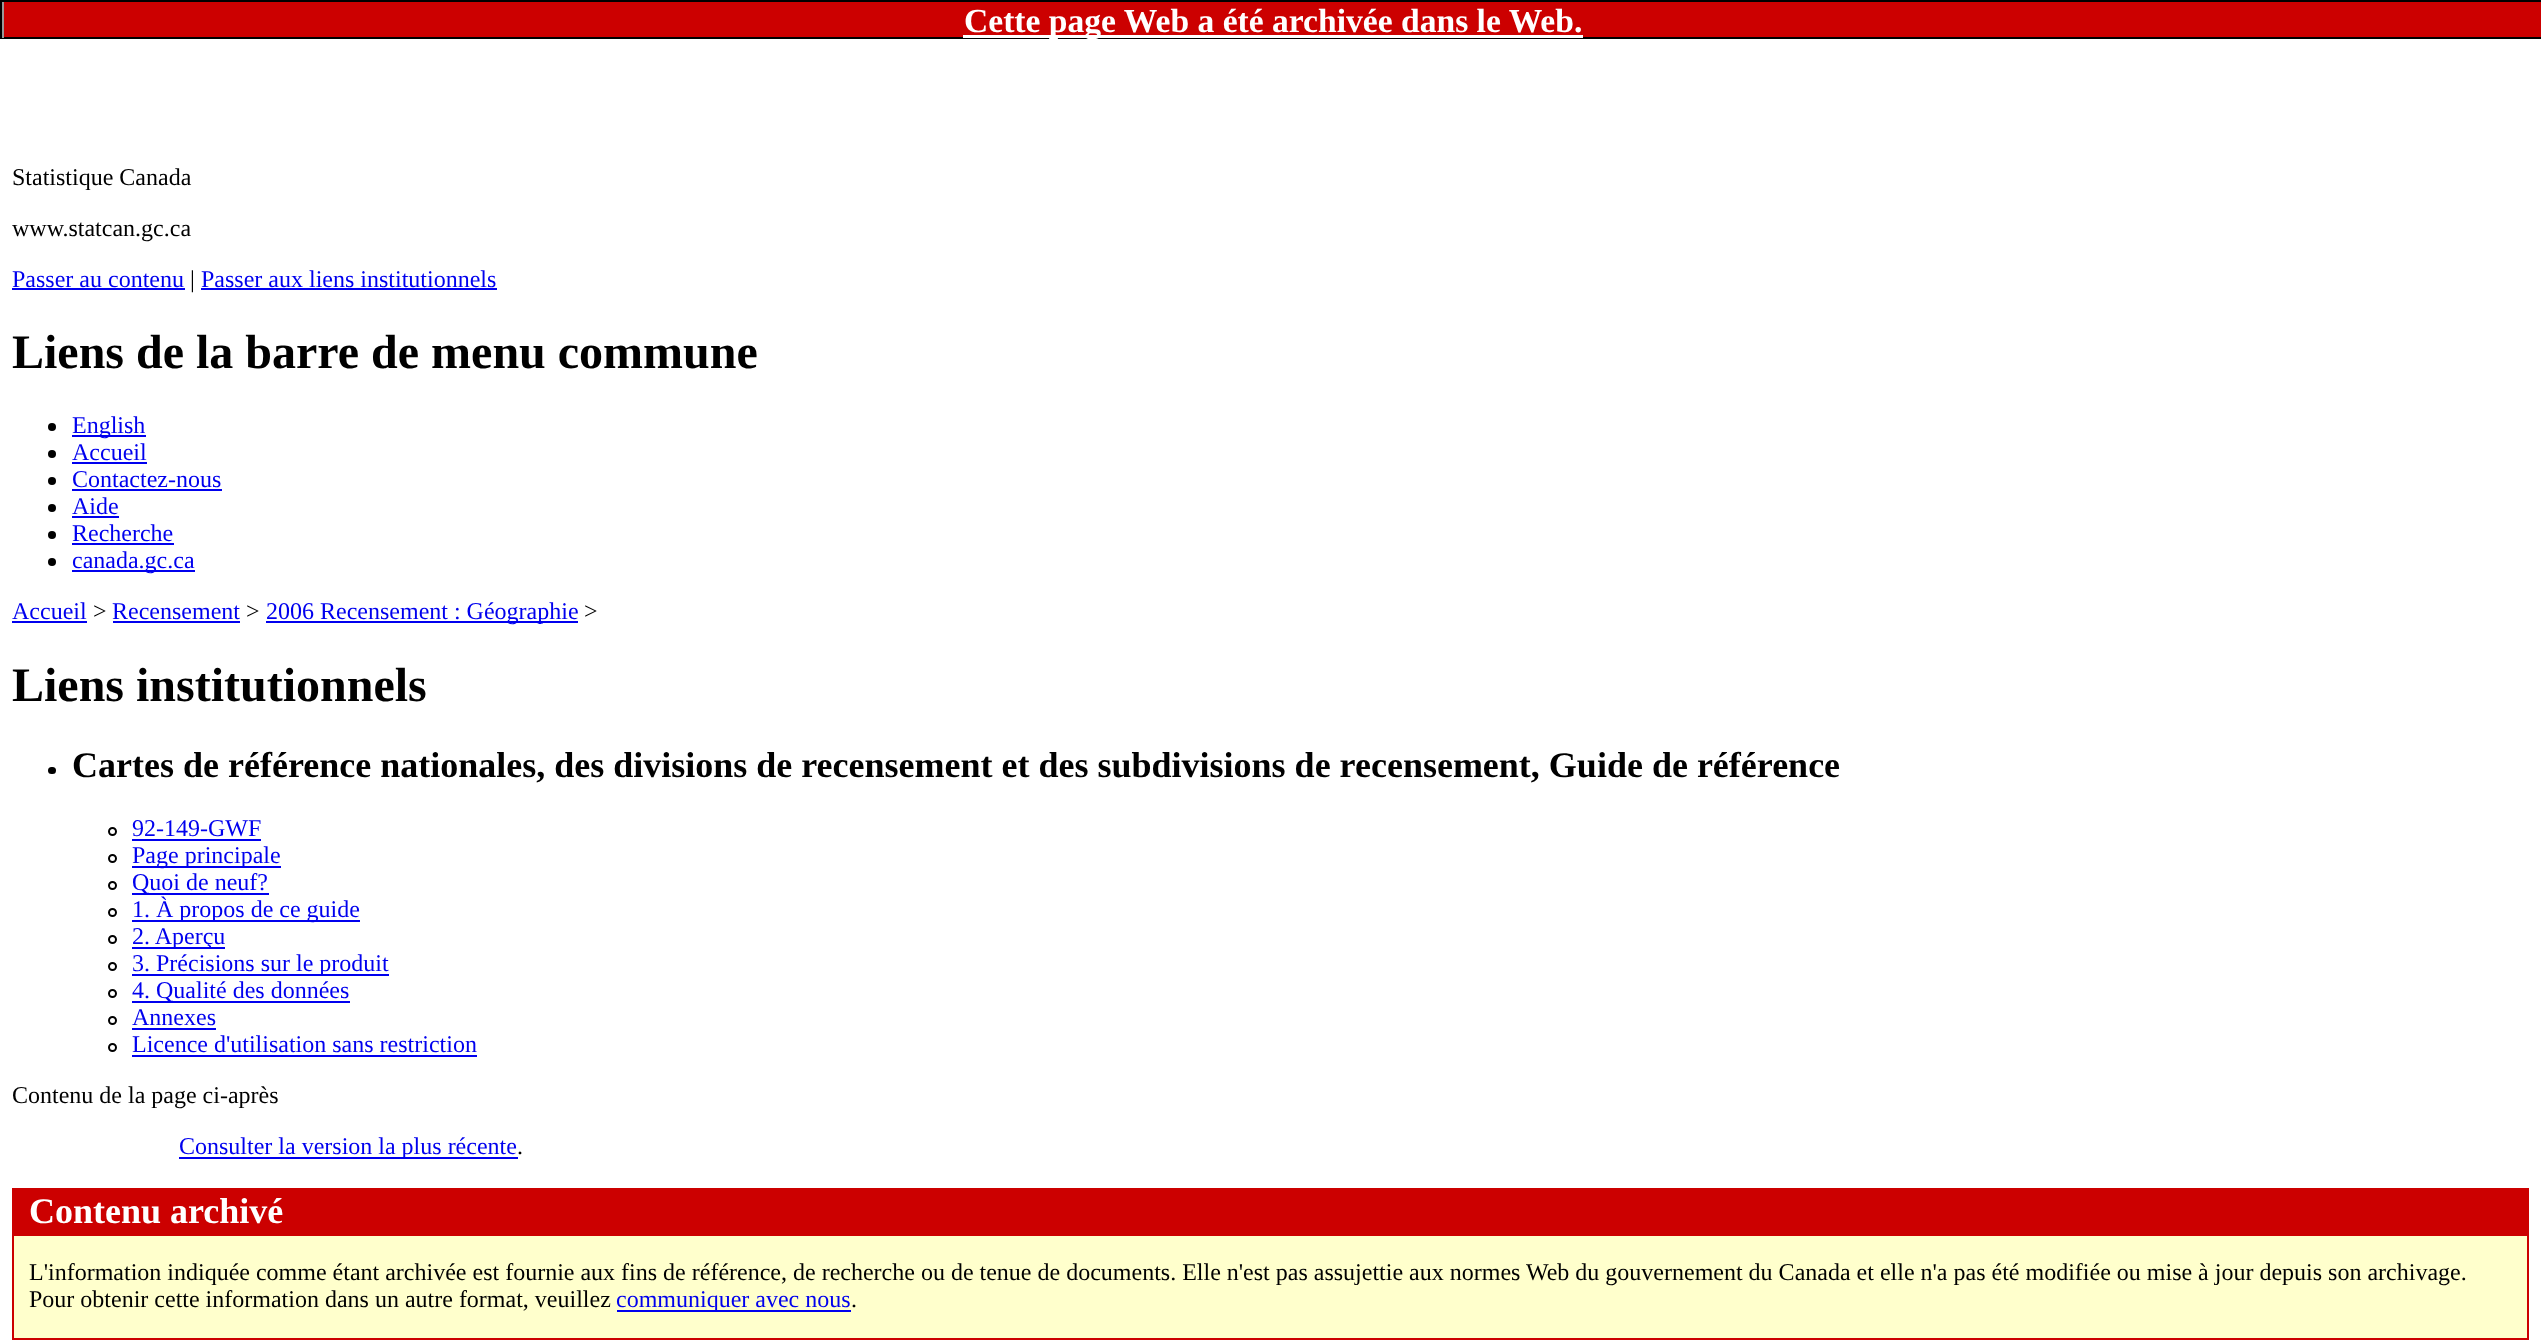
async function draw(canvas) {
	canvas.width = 2541;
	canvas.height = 1344;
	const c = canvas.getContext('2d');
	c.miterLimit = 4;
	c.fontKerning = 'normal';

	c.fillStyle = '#fff';
	c.fillRect(0, 0, 2541, 1344);
	c.fillStyle = '#c00';
	c.fillRect(4, 2, 2537, 35);
	c.strokeStyle = '#000';
	c.lineWidth = 2;
	c.strokeRect(1, 1, 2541, 37);
	c.fillStyle = '#999';
	c.fillRect(2, 2, 2, 36);
	c.fillStyle = '#fff';
	c.fillRect(963, 35, 620, 3);
	c.font = 'bold 33.6px Liberation Serif';
	c.fillText('Cette page Web a été archivée dans le Web.', 964, 32);
	c.font = '24px Liberation Serif';
	c.fillStyle = '#000';
	c.fillText('Statistique Canada', 12, 185);
	c.fillText('www.statcan.gc.ca', 12, 236);
	c.fillStyle = '#00e';
	c.fillText('Passer au contenu', 12, 287);
	c.fillRect(12, 288, 173, 2);
	c.fillStyle = '#000';
	c.fillText('|', 190, 287);
	c.fillStyle = '#00e';
	c.fillText('Passer aux liens institutionnels', 201, 287);
	c.fillRect(201, 288, 296, 2);
	c.font = 'bold 48px Liberation Serif';
	c.fillStyle = '#000';
	c.fillText('Liens de la barre de menu commune', 12, 368);
	c.beginPath();
	c.arc(52, 427, 4, 0, 2 * Math.PI);
	c.fill();
	c.fillStyle = '#00e';
	c.fillRect(72, 435, 74, 2);
	c.font = '24px Liberation Serif';
	c.fillText('English', 72, 433);
	c.fillStyle = '#000';
	c.beginPath();
	c.arc(52, 454, 4, 0, 2 * Math.PI);
	c.fill();
	c.fillStyle = '#00e';
	c.fillText('Accueil', 72, 460);
	c.fillRect(72, 462, 75, 2);
	c.fillStyle = '#000';
	c.beginPath();
	c.arc(52, 481, 4, 0, 2 * Math.PI);
	c.fill();
	c.fillStyle = '#00e';
	c.fillText('Contactez-nous', 72, 487);
	c.fillRect(72, 489, 150, 2);
	c.fillStyle = '#000';
	c.beginPath();
	c.arc(52, 508, 4, 0, 2 * Math.PI);
	c.fill();
	c.fillStyle = '#00e';
	c.fillText('Aide', 72, 514);
	c.fillRect(72, 516, 47, 2);
	c.fillStyle = '#000';
	c.beginPath();
	c.arc(52, 535, 4, 0, 2 * Math.PI);
	c.fill();
	c.fillStyle = '#00e';
	c.fillText('Recherche', 72, 541);
	c.fillRect(72, 543, 102, 2);
	c.fillStyle = '#000';
	c.beginPath();
	c.arc(52, 562, 4, 0, 2 * Math.PI);
	c.fill();
	c.fillStyle = '#00e';
	c.fillRect(72, 570, 123, 2);
	c.fillText('canada.gc.ca', 72, 568);
	c.fillText('Accueil', 12, 619);
	c.fillRect(12, 621, 75, 2);
	c.fillStyle = '#000';
	c.fillText('>', 93, 619);
	c.fillStyle = '#00e';
	c.fillText('Recensement', 112, 619);
	c.fillRect(113, 621, 127, 2);
	c.fillStyle = '#000';
	c.fillText('>', 246, 619);
	c.fillStyle = '#00e';
	c.fillRect(266, 621, 312, 2);
	c.fillText('2006 Recensement : Géographie', 266, 619);
	c.fillStyle = '#000';
	c.fillText('>', 584, 619);
	c.font = 'bold 48px Liberation Serif';
	c.fillText('Liens institutionnels', 12, 701);
	c.beginPath();
	c.roundRect(48, 767, 8, 7, 3.5);
	c.fill();
	c.font = 'bold 36px Liberation Serif';
	c.fillText('Cartes de référence nationales, des divisions de recensement et des subdivisions de recensement, Guide de référence', 72, 777);
	c.beginPath();
	c.arc(112.5, 831.5, 3.5, 0, 2 * Math.PI);
	c.stroke();
	c.font = '24px Liberation Serif';
	c.fillStyle = '#00e';
	c.fillText('92-149-GWF', 132, 836);
	c.fillRect(132, 839, 129, 2);
	c.beginPath();
	c.arc(112.5, 858.5, 3.5, 0, 2 * Math.PI);
	c.stroke();
	c.fillRect(132, 866, 149, 2);
	c.fillText('Page principale', 132, 863);
	c.beginPath();
	c.arc(112.5, 885.5, 3.5, 0, 2 * Math.PI);
	c.stroke();
	c.fillRect(132, 893, 137, 2);
	c.fillText('Quoi de neuf?', 132, 890);
	c.beginPath();
	c.arc(112.5, 912.5, 3.5, 0, 2 * Math.PI);
	c.stroke();
	c.fillRect(132, 920, 228, 2);
	c.fillText('1. À propos de ce guide', 132, 917);
	c.beginPath();
	c.arc(112.5, 939.5, 3.5, 0, 2 * Math.PI);
	c.stroke();
	c.fillRect(132, 947, 93, 2);
	c.fillText('2. Aperçu', 132, 944);
	c.beginPath();
	c.arc(112.5, 966.5, 3.5, 0, 2 * Math.PI);
	c.stroke();
	c.fillRect(132, 974, 257, 2);
	c.fillText('3. Précisions sur le produit', 132, 971);
	c.beginPath();
	c.arc(112.5, 993.5, 3.5, 0, 2 * Math.PI);
	c.stroke();
	c.fillRect(132, 1001, 218, 2);
	c.fillText('4. Qualité des données', 132, 998);
	c.beginPath();
	c.arc(112.5, 1020.5, 3.5, 0, 2 * Math.PI);
	c.stroke();
	c.fillText('Annexes', 132, 1025);
	c.fillRect(132, 1028, 84, 2);
	c.beginPath();
	c.arc(112.5, 1047.5, 3.5, 0, 2 * Math.PI);
	c.stroke();
	c.fillText('Licence d\'utilisation sans restriction', 132, 1052);
	c.fillRect(132, 1055, 345, 2);
	c.fillStyle = '#000';
	c.fillText('Contenu de la page ci-après', 12, 1103);
	c.fillStyle = '#00e';
	c.fillRect(179, 1157, 339, 2);
	c.fillText('Consulter la version la plus récente', 179, 1154);
	c.fillStyle = '#000';
	c.fillText('.', 517, 1154);
	c.fillStyle = '#ffc';
	c.fillRect(14, 1236, 2513, 102);
	c.strokeStyle = '#c00';
	c.strokeRect(13, 1189, 2515, 150);
	c.fillStyle = '#c00';
	c.fillRect(14, 1190, 2513, 46);
	c.font = 'bold 36px Liberation Serif';
	c.fillStyle = '#fff';
	c.fillText('Contenu archivé', 29, 1223);
	c.font = '24px Liberation Serif';
	c.fillStyle = '#000';
	c.fillText('L\'information indiquée comme étant archivée est fournie aux fins de référence, de recherche ou de tenue de documents. Elle n\'est pas assujettie aux normes Web du gouvernement du Canada et elle n\'a pas été modifiée ou mise à jour depuis son archivage.', 29, 1280);
	c.fillText('Pour obtenir cette information dans un autre format, veuillez', 29, 1307);
	c.fillStyle = '#00e';
	c.fillRect(617, 1310, 234, 2);
	c.fillText('communiquer avec nous', 616, 1307);
	c.fillStyle = '#000';
	c.fillText('.', 851, 1307);
}

draw(document.querySelector('canvas'));
